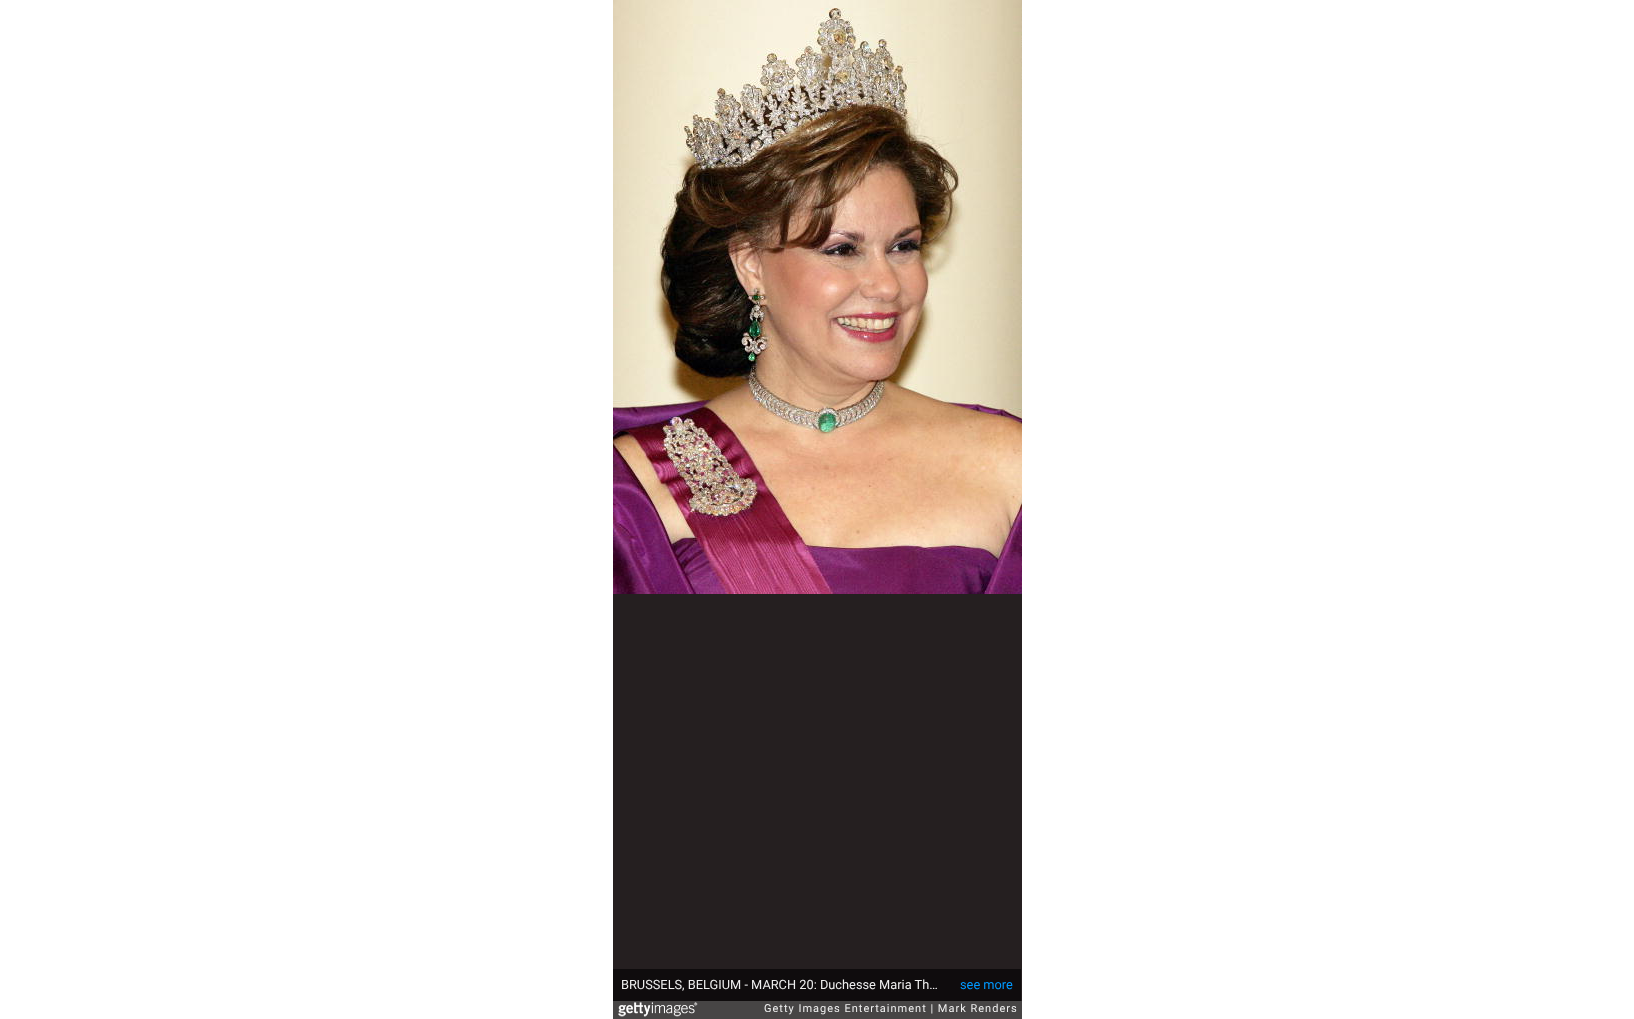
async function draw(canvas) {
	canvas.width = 1634;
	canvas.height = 1019;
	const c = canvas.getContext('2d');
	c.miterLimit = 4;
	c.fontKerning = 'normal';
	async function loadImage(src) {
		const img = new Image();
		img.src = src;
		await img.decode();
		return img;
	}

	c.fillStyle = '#fff';
	c.fillRect(0, 0, 1634, 1019);
	c.fillStyle = '#251f20';
	c.fillRect(613, 594, 409, 407);
	c.drawImage(await loadImage('img1.png'), 613, 0, 409, 594);
	c.fillStyle = '#0f0c0d';
	c.fillRect(613, 969, 408, 32);
	c.font = '12.8px Roboto';
	c.fillStyle = '#eee';
	c.fillText('BRUSSELS, BELGIUM - MARCH 20: Duchesse Maria Th…', 621, 989);
	c.fillStyle = '#09f';
	c.fillText('see more', 960, 989);
	c.fillStyle = '#474545';
	c.fillRect(613, 1001, 409, 18);
	c.drawImage(await loadImage('img2.png'), 618, 1002, 80, 15);
	c.letterSpacing = '1px';
	c.font = '11px Roboto';
	c.fillStyle = '#eee';
	c.fillText('Getty Images Entertainment | Mark Renders', 764, 1012);
}

draw(document.querySelector('canvas'));
